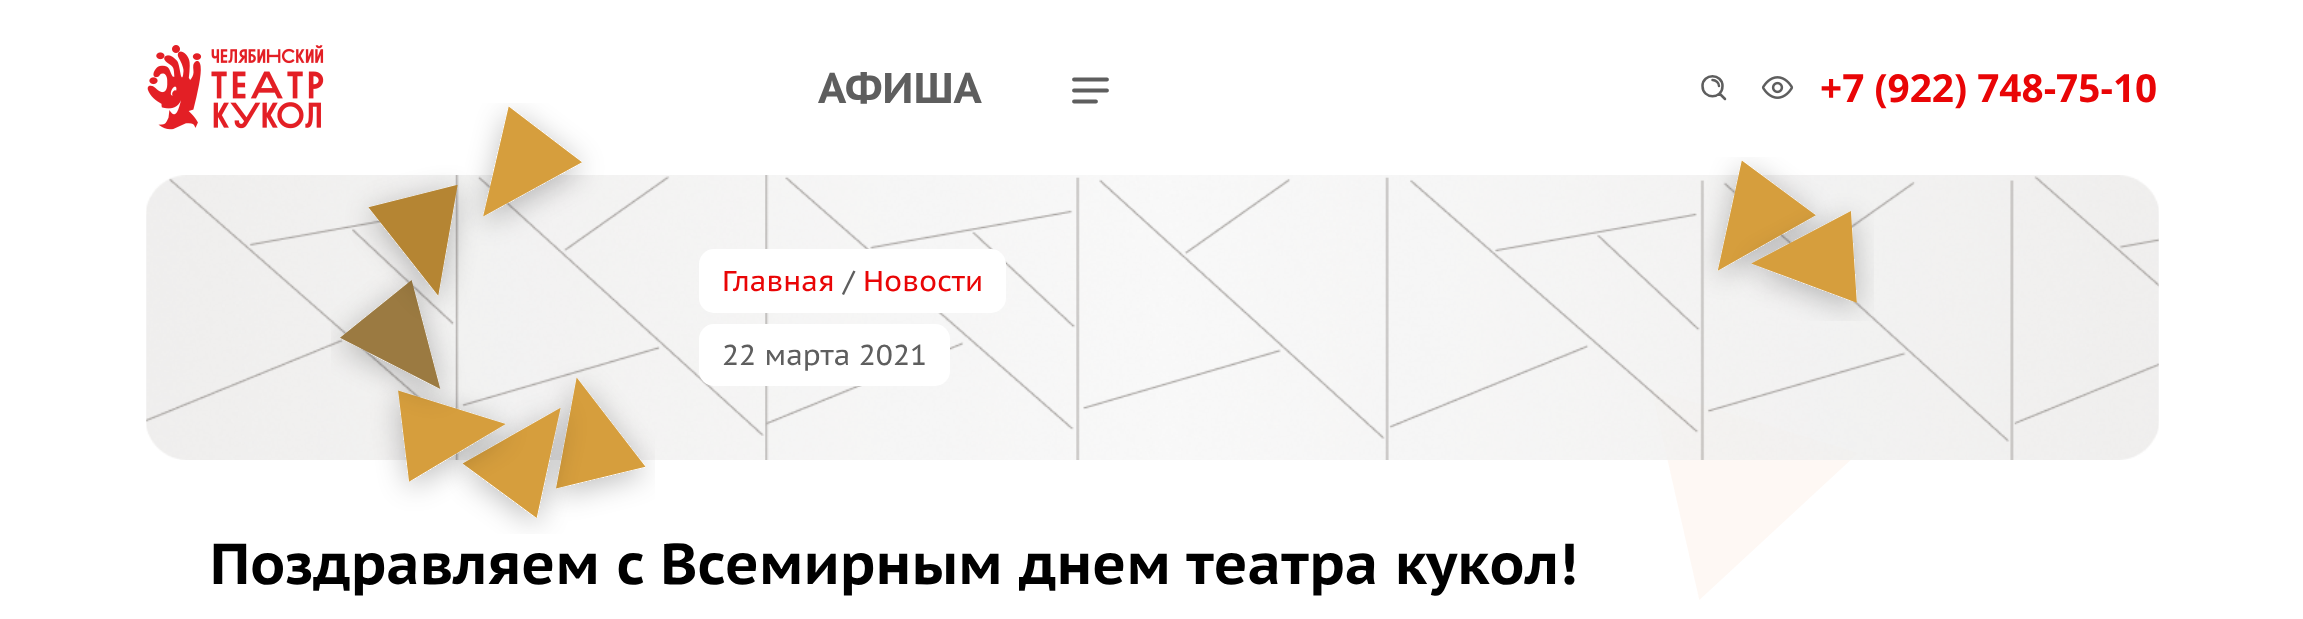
async function draw(canvas) {
	canvas.width = 2303;
	canvas.height = 619;
	const c = canvas.getContext('2d');
	c.miterLimit = 4;
	c.fontKerning = 'normal';
	async function loadImage(src) {
		const img = new Image();
		img.src = src;
		await img.decode();
		return img;
	}

	c.fillStyle = '#fff';
	c.fillRect(0, 0, 2303, 619);
	c.drawImage(await loadImage('img1.png'), 1651, 389, 207, 211);
	c.drawImage(await loadImage('img2.png'), 147, 45, 177, 85);
	c.font = 'bold 43px PT Sans Caption';
	c.fillStyle = '#5e5e5e';
	c.fillText('АФИША', 818, 103);
	c.beginPath();
	c.moveTo(1074, 90.5);
	c.lineTo(1107, 90.5);
	c.moveTo(1074, 79.5);
	c.lineTo(1107, 79.5);
	c.moveTo(1074, 101.5);
	c.lineTo(1096, 101.5);
	c.strokeStyle = '#5e5e5e';
	c.lineWidth = 3.8;
	c.lineCap = 'round';
	c.lineJoin = 'round';
	c.stroke();
	c.beginPath();
	c.moveTo(1725, 99);
	c.lineTo(1719.5, 93.5);
	c.moveTo(1712.5, 80);
	c.bezierCurveTo(1716, 80, 1719, 83, 1719, 86);
	c.moveTo(1722.5, 86);
	c.bezierCurveTo(1722.5, 99.5, 1702.5, 99.5, 1702.5, 86);
	c.bezierCurveTo(1702.5, 73, 1722.5, 73, 1722.5, 86);
	c.closePath();
	c.lineWidth = 2.5;
	c.stroke();
	c.drawImage(await loadImage('img3.png'), 1761, 76, 33, 23);
	c.font = 'bold 38.75px Open Sans';
	c.fillStyle = '#e90506';
	c.fillText('+7 (922) 748-75-10', 1820, 102);
	c.drawImage(await loadImage('img4.png'), 146, 175, 2013, 285);
	c.drawImage(await loadImage('img5.png'), 331, 103, 324, 431);
	c.fillStyle = '#fff';
	c.beginPath();
	c.roundRect(699, 249, 307, 64, 15);
	c.fill();
	c.font = '28.75px PT Sans Caption';
	c.fillStyle = '#e90506';
	c.fillText('Главная', 722, 291);
	c.fillStyle = '#5e5e5e';
	c.fillText('/', 843, 291);
	c.fillStyle = '#e90506';
	c.fillText('Новости', 863, 291);
	c.fillStyle = '#fff';
	c.beginPath();
	c.roundRect(699, 324, 251, 62, 15);
	c.fill();
	c.fillStyle = '#5e5e5e';
	c.fillText('22 марта 2021', 722, 365);
	c.drawImage(await loadImage('img6.png'), 1704, 157, 170, 164);
	c.wordSpacing = '0.5px';
	c.font = 'bold 57.5px PT Sans Caption';
	c.fillStyle = '#000';
	c.fillText('Поздравляем с Всемирным днем театра кукол!', 210, 584);
}

draw(document.querySelector('canvas'));
